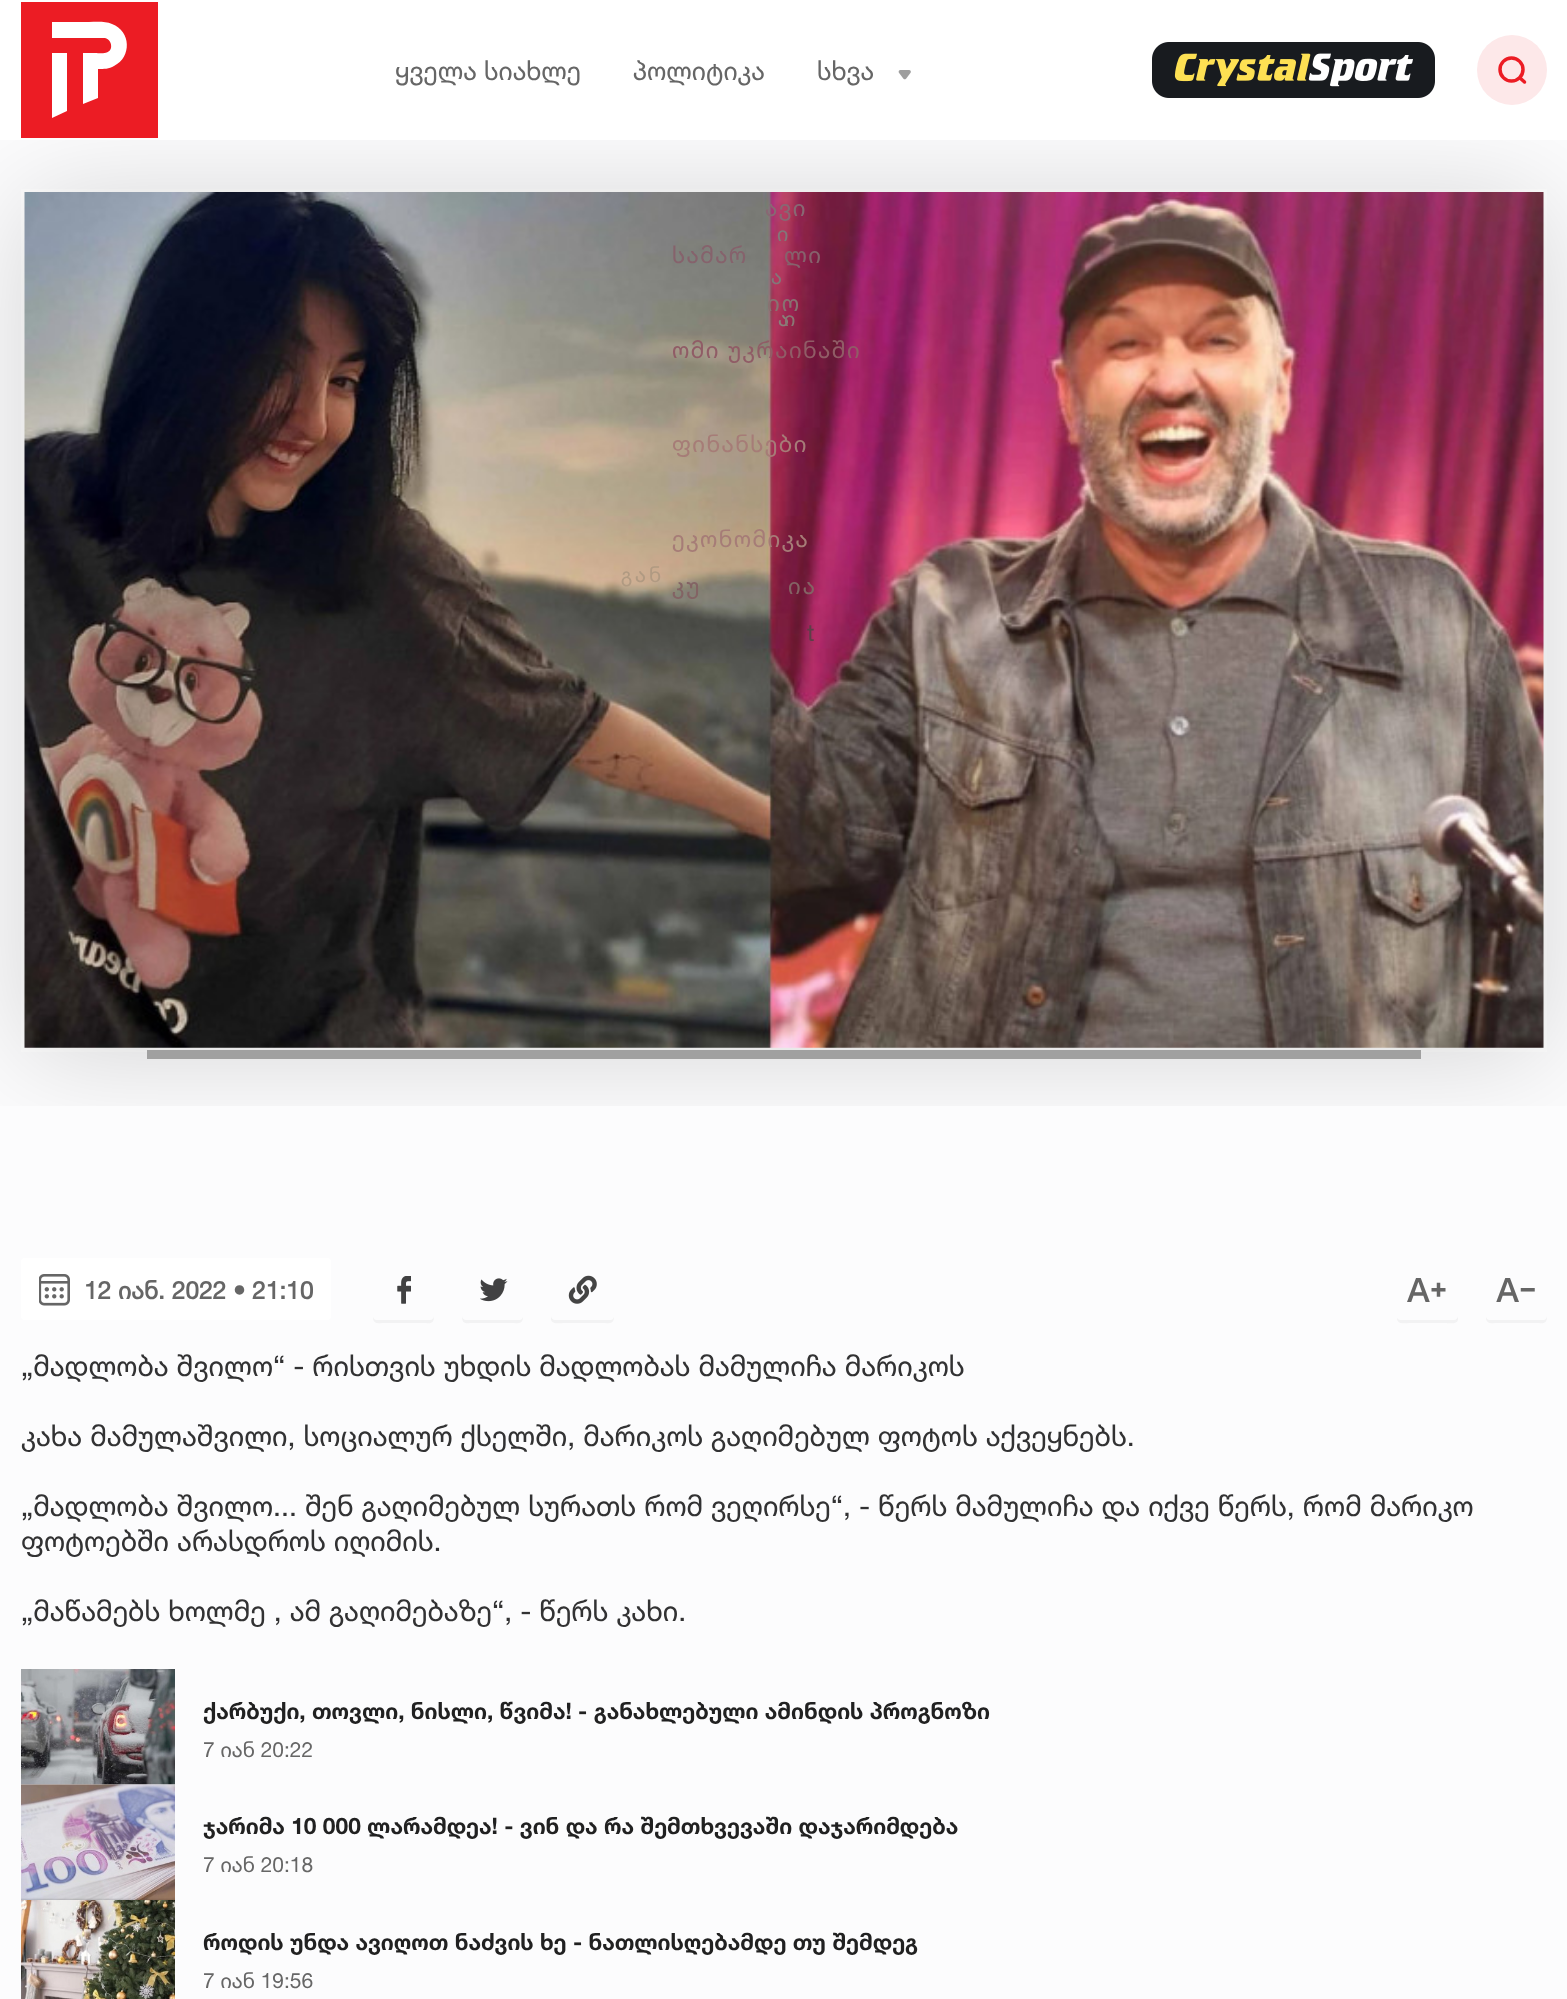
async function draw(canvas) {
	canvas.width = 1567;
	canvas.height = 1999;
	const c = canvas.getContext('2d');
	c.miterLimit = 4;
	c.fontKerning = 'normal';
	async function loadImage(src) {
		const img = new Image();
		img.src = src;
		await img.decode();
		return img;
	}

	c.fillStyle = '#fcfcfd';
	c.fillRect(0, 0, 1567, 1999);
	c.fillStyle = '#fff';
	c.fillRect(0, 0, 1567, 140);
	c.fillStyle = '#ec1c24';
	c.fillRect(21, 2, 137, 136);
	c.fillStyle = '#fff';
	c.beginPath();
	c.moveTo(52, 22);
	c.lineTo(89, 22);
	c.bezierCurveTo(96, 22, 105, 21, 112, 24);
	c.bezierCurveTo(131, 31, 132, 57, 114, 66);
	c.bezierCurveTo(109, 69, 104, 69, 98, 69);
	c.lineTo(98, 98);
	c.lineTo(83, 104);
	c.lineTo(83, 53);
	c.lineTo(95, 53);
	c.bezierCurveTo(100, 53, 109, 55, 111, 48);
	c.bezierCurveTo(112, 43, 109, 39, 105, 38);
	c.lineTo(52, 38);
	c.closePath();
	c.fill();
	c.beginPath();
	c.moveTo(52, 53);
	c.lineTo(67, 53);
	c.lineTo(67, 111);
	c.lineTo(52, 118);
	c.closePath();
	c.fill();
	c.font = '26.25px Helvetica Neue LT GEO';
	c.fillStyle = '#666';
	c.fillText('ყველა სიახლე', 395, 80);
	c.fillText('სხვა', 817, 80);
	c.drawImage(await loadImage('img1.png'), 898, 70, 13, 10);
	c.strokeStyle = '#fff';
	c.lineWidth = 4;
	c.strokeRect(23, 191, 1522, 859);
	c.drawImage(await loadImage('img3.png'), 0, 140, 1567, 966);
	c.letterSpacing = '1.5px';
	c.font = '23.5px Helvetica Neue LT GEO';
	c.fillStyle = '#886873';
	c.fillText('ავი', 765, 216);
	c.letterSpacing = '3px';
	c.font = '21px Helvetica Neue LT GEO';
	c.fillStyle = '#827779';
	c.fillText('ი', 777, 241);
	c.fillText('ა', 771, 284);
	c.fillStyle = '#8a807a';
	c.fillText('ა', 778, 326);
	c.fillStyle = '#897874';
	c.fillText('ი', 784, 326);
	c.letterSpacing = '1.5px';
	c.font = '23.5px Helvetica Neue LT GEO';
	c.fillStyle = '#86626c';
	c.fillText('სამარ', 672, 263);
	c.fillText('ლი', 784, 263);
	c.letterSpacing = '2px';
	c.fillStyle = '#887271';
	c.fillText('იო', 767, 311);
	c.letterSpacing = '1.5px';
	c.fillStyle = '#905c66';
	c.fillText('ომი უკრაინაში', 672, 358);
	c.fillStyle = '#a67c77';
	c.fillText('ფინანსები', 672, 452);
	c.fillText('ეკონომიკა', 672, 547);
	c.letterSpacing = '3px';
	c.font = '21px Helvetica Neue LT GEO';
	c.fillStyle = '#b09a82';
	c.fillText('გან', 621, 582);
	c.letterSpacing = '2px';
	c.font = '23.5px Helvetica Neue LT GEO';
	c.fillStyle = '#836364';
	c.fillText('კუ', 672, 594);
	c.fillText('ია', 788, 594);
	c.letterSpacing = '1px';
	c.fillStyle = '#5c3f47';
	c.fillText('t', 807, 641);
	c.letterSpacing = '0px';
	c.font = '26.25px Helvetica Neue LT GEO';
	c.fillStyle = '#666';
	c.fillText('პოლიტიკა', 633, 80);
	c.drawImage(await loadImage('img2.png'), 1152, 42, 283, 56);
	c.fillStyle = '#fde8e9';
	c.beginPath();
	c.arc(1512, 70, 35, 0, 2 * Math.PI);
	c.fill();
	c.beginPath();
	c.arc(1511.5, 69.5, 11.5, 0, 2 * Math.PI);
	c.strokeStyle = '#ec1c24';
	c.lineWidth = 3.5;
	c.stroke();
	c.beginPath();
	c.moveTo(1520, 78);
	c.lineTo(1524.5, 82);
	c.lineCap = 'round';
	c.lineJoin = 'round';
	c.stroke();
	c.fillStyle = '#a0a0a0';
	c.fillRect(147, 1050, 1274, 9);
	c.fillStyle = '#fff';
	c.beginPath();
	c.roundRect(21, 1258, 310, 62, 4);
	c.fill();
	c.drawImage(await loadImage('img4.png'), 39, 1274, 31, 32);
	c.font = 'bold 24.5px Helvetica Neue LT GEO';
	c.fillStyle = '#666';
	c.fillText('12 იან. 2022 • 21:10', 84, 1299);
	c.fillStyle = '#f2f2f3';
	c.beginPath();
	c.moveTo(373, 1317);
	c.bezierCurveTo(373, 1325, 379, 1323, 386, 1323);
	c.lineTo(421, 1323);
	c.bezierCurveTo(430, 1323, 434, 1325, 434, 1316);
	c.bezierCurveTo(434, 1318, 432, 1320, 430, 1320);
	c.lineTo(376, 1320);
	c.bezierCurveTo(375, 1320, 374, 1319, 373, 1317);
	c.closePath();
	c.fill();
	c.drawImage(await loadImage('img5.png'), 397, 1276, 14, 28);
	c.beginPath();
	c.moveTo(462, 1316);
	c.bezierCurveTo(462, 1325, 466, 1323, 475, 1323);
	c.lineTo(510, 1323);
	c.bezierCurveTo(517, 1323, 523, 1325, 523, 1317);
	c.bezierCurveTo(522, 1319, 521, 1320, 520, 1320);
	c.lineTo(466, 1320);
	c.bezierCurveTo(464, 1320, 462, 1318, 462, 1316);
	c.closePath();
	c.fill();
	c.drawImage(await loadImage('img6.png'), 480, 1278, 28, 24);
	c.beginPath();
	c.moveTo(551, 1265);
	c.lineTo(551, 1319);
	c.bezierCurveTo(551, 1325, 562, 1323, 564, 1323);
	c.lineTo(601, 1323);
	c.bezierCurveTo(608, 1323, 614, 1325, 614, 1317);
	c.bezierCurveTo(613, 1319, 612, 1320, 611, 1320);
	c.lineTo(555, 1320);
	c.bezierCurveTo(553, 1320, 551, 1318, 551, 1316);
	c.closePath();
	c.fill();
	c.drawImage(await loadImage('img7.png'), 568, 1275, 29, 29);
	c.beginPath();
	c.moveTo(1397, 1318);
	c.bezierCurveTo(1397, 1325, 1404, 1323, 1410, 1323);
	c.lineTo(1445, 1323);
	c.bezierCurveTo(1448, 1323, 1458, 1325, 1458, 1319);
	c.lineTo(1458, 1265);
	c.lineTo(1458, 1316);
	c.bezierCurveTo(1458, 1318, 1456, 1320, 1454, 1320);
	c.lineTo(1400, 1320);
	c.bezierCurveTo(1399, 1320, 1398, 1319, 1397, 1318);
	c.closePath();
	c.fill();
	c.drawImage(await loadImage('img8.png'), 1407, 1278, 39, 24);
	c.beginPath();
	c.moveTo(1486, 1317);
	c.bezierCurveTo(1486, 1325, 1492, 1323, 1499, 1323);
	c.lineTo(1534, 1323);
	c.bezierCurveTo(1543, 1323, 1547, 1325, 1547, 1316);
	c.bezierCurveTo(1547, 1318, 1545, 1320, 1544, 1320);
	c.lineTo(1489, 1320);
	c.bezierCurveTo(1488, 1320, 1487, 1319, 1486, 1317);
	c.closePath();
	c.fill();
	c.drawImage(await loadImage('img9.png'), 1496, 1278, 39, 24);
	c.font = '28.7px Helvetica Neue LT GEO';
	c.fillStyle = '#323233';
	for (const [text, x, y] of [
		['„მადლობა შვილო“ - რისთვის უხდის მადლობას მამულიჩა მარიკოს', 21, 1376],
		['კახა მამულაშვილი, სოციალურ ქსელში, მარიკოს გაღიმებულ ფოტოს აქვეყნებს.', 21, 1446],
		['„მადლობა შვილო... შენ გაღიმებულ სურათს რომ ვეღირსე“, - წერს მამულიჩა და იქვე წერს, რომ მარიკო', 21, 1516],
		['ფოტოებში არასდროს იღიმის.', 21, 1551],
		['„მაწამებს ხოლმე , ამ გაღიმებაზე“, - წერს კახი.', 21, 1621],
	]) {
		c.fillText(text, x, y);
	}
	c.drawImage(await loadImage('img10.png'), 21, 1669, 154, 116);
	c.font = 'bold 22.75px "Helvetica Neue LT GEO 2"';
	c.fillStyle = '#212121';
	c.fillText('ქარბუქი, თოვლი, ნისლი, წვიმა! - განახლებული ამინდის პროგნოზი', 203, 1719);
	c.font = '21px Helvetica Neue LT GEO';
	c.fillStyle = '#666';
	c.fillText('7 იან 20:22', 203, 1757);
	c.drawImage(await loadImage('img11.png'), 21, 1784, 154, 116);
	c.font = 'bold 22.75px "Helvetica Neue LT GEO 2"';
	c.fillStyle = '#212121';
	c.fillText('ჯარიმა 10 000 ლარამდეა! - ვინ და რა შემთხვევაში დაჯარიმდება', 203, 1834);
	c.font = '21px Helvetica Neue LT GEO';
	c.fillStyle = '#666';
	c.fillText('7 იან 20:18', 203, 1872);
	c.drawImage(await loadImage('img12.png'), 21, 1900, 154, 99);
	c.font = 'bold 22.75px "Helvetica Neue LT GEO 2"';
	c.fillStyle = '#212121';
	c.fillText('როდის უნდა ავიღოთ ნაძვის ხე - ნათლისღებამდე თუ შემდეგ', 203, 1950);
	c.font = '21px Helvetica Neue LT GEO';
	c.fillStyle = '#666';
	c.fillText('7 იან 19:56', 203, 1988);
}

draw(document.querySelector('canvas'));
